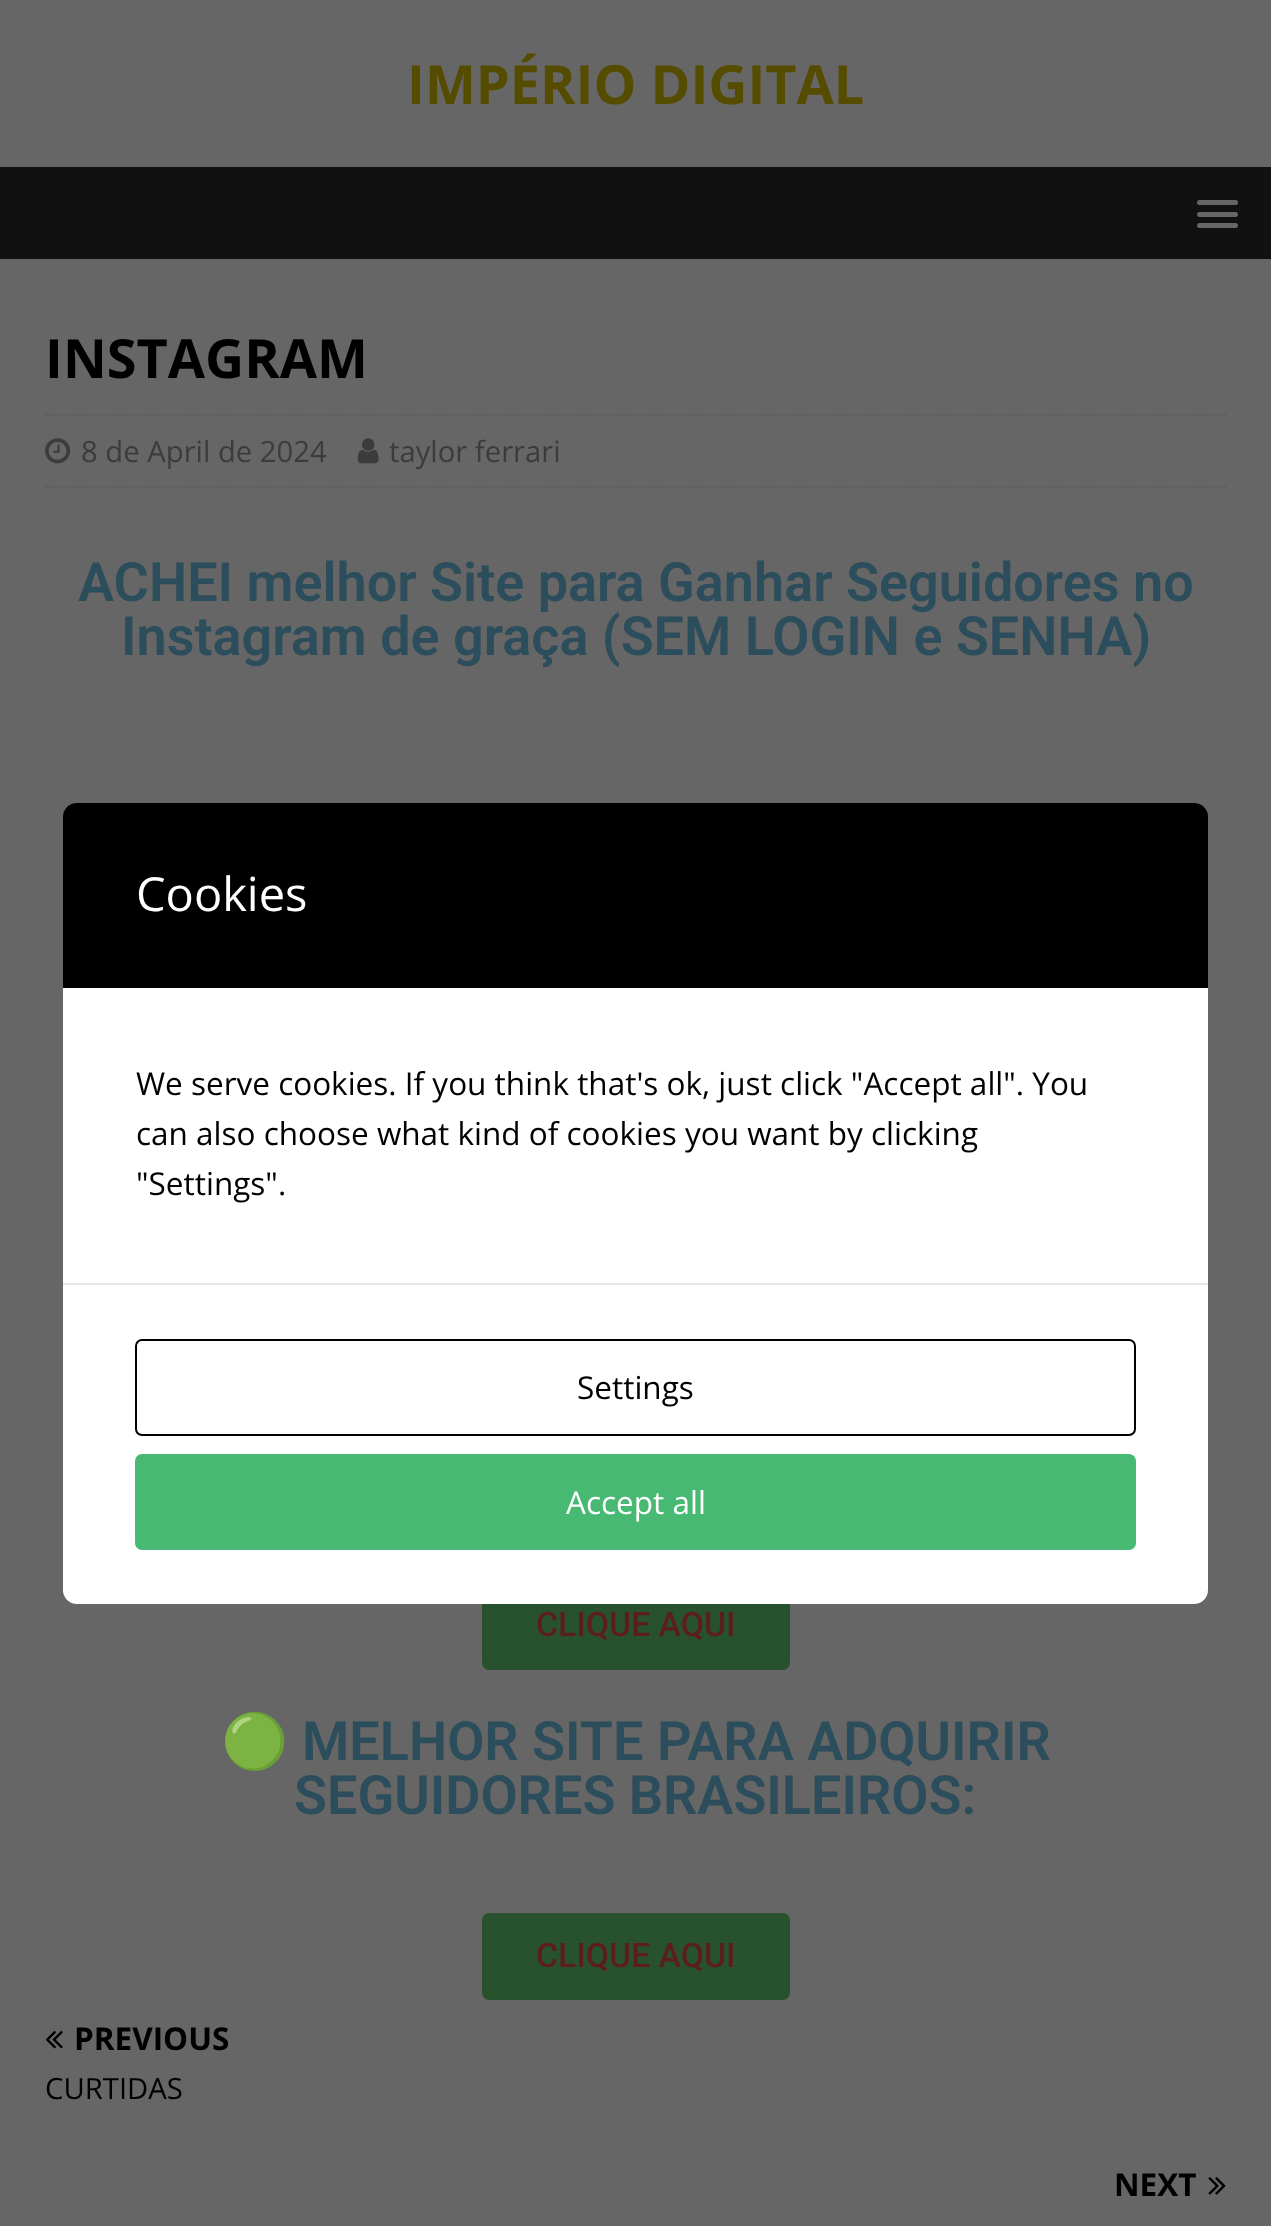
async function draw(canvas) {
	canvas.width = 1271;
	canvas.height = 2226;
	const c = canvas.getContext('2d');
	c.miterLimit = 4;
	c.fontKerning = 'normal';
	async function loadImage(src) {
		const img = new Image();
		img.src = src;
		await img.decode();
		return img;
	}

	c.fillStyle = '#666';
	c.fillRect(0, 0, 1271, 2226);
	c.font = 'bold 54px Open Sans';
	c.fillStyle = '#564c00';
	c.fillText('IMPÉRIO DIGITAL', 407, 104);
	c.fillStyle = '#111';
	c.fillRect(0, 167, 1271, 92);
	c.fillStyle = '#666';
	c.beginPath();
	c.roundRect(1197, 200, 41, 5, 2.5);
	c.fill();
	c.beginPath();
	c.roundRect(1197, 212, 41, 5, 2.5);
	c.fill();
	c.beginPath();
	c.roundRect(1197, 223, 41, 5, 2.5);
	c.fill();
	c.fillStyle = '#000';
	c.fillText('INSTAGRAM', 45, 378);
	c.beginPath();
	c.moveTo(45, 415);
	c.lineTo(1226, 415);
	c.strokeStyle = '#5e5e5e';
	c.lineWidth = 2.2;
	c.setLineDash([2.25, 2.25]);
	c.stroke();
	c.beginPath();
	c.moveTo(45, 487);
	c.lineTo(1226, 487);
	c.stroke();
	c.drawImage(await loadImage('img1.png'), 45, 438, 26, 26);
	c.font = '29.25px Open Sans';
	c.fillStyle = '#3c3c3c';
	c.fillText('8 de April de 2024', 81, 462);
	c.drawImage(await loadImage('img2.png'), 357, 438, 22, 26);
	c.fillText('taylor ferrari', 389, 462);
	c.font = '600 54px Roboto';
	c.fillStyle = '#2c4d5b';
	c.fillText('ACHEI melhor Site para Ganhar Seguidores no', 78, 601);
	c.fillText('Instagram de graça (SEM LOGIN e SENHA)', 121, 655);
	c.fillStyle = '#27522d';
	c.beginPath();
	c.roundRect(482, 1582, 308, 88, 7);
	c.fill();
	c.font = '500 33.75px Roboto';
	c.fillStyle = '#5c1d1c';
	c.fillText('CLIQUE AQUI', 536, 1636);
	c.font = 'bold 54px Noto Color Emoji';
	c.fillStyle = '#2c4d5b';
	c.fillText('🟢', 221, 1760);
	c.font = '600 54px Roboto';
	c.fillText('MELHOR SITE PARA ADQUIRIR', 302, 1760);
	c.fillText('SEGUIDORES BRASILEIROS:', 294, 1814);
	c.fillStyle = '#27522d';
	c.beginPath();
	c.roundRect(482, 1913, 308, 87, 7);
	c.fill();
	c.font = '500 33.75px Roboto';
	c.fillStyle = '#5c1d1c';
	c.fillText('CLIQUE AQUI', 536, 1967);
	c.drawImage(await loadImage('img3.png'), 45, 2030, 18, 19);
	c.font = 'bold 31.5px Open Sans';
	c.fillStyle = '#000';
	c.fillText('PREVIOUS', 74, 2050);
	c.font = '29.25px Open Sans';
	c.fillText('CURTIDAS', 45, 2099);
	c.font = 'bold 31.5px Open Sans';
	c.fillText('NEXT', 1114, 2196);
	c.drawImage(await loadImage('img4.png'), 1208, 2177, 18, 18);
	c.beginPath();
	c.roundRect(63, 803, 1145, 185, [14, 14, 0, 0]);
	c.fill();
	c.font = '47px Open Sans';
	c.fillStyle = '#fff';
	c.fillText('Cookies', 136, 911);
	c.fillRect(63, 988, 1145, 295);
	c.font = '31.5px Open Sans';
	c.fillStyle = '#000';
	for (const [text, x, y] of [
		['We serve cookies. If you think that\'s ok, just click "Accept all". You', 136, 1095],
		['can also choose what kind of cookies you want by clicking', 136, 1145],
		['"Settings".', 136, 1195],
	]) {
		c.fillText(text, x, y);
	}
	c.fillStyle = '#fff';
	c.beginPath();
	c.roundRect(63, 1283, 1145, 321, [0, 0, 14, 14]);
	c.fill();
	c.fillStyle = '#e6e6e6';
	c.fillRect(63, 1283, 1145, 2);
	c.beginPath();
	c.roundRect(136, 1340, 999, 95, 6);
	c.strokeStyle = '#000';
	c.lineWidth = 2;
	c.setLineDash([]);
	c.stroke();
	c.fillStyle = '#000';
	c.fillText('Settings', 577, 1399);
	c.fillStyle = '#47b973';
	c.beginPath();
	c.roundRect(136, 1455, 999, 94, 6);
	c.fill();
	c.strokeStyle = '#47b973';
	c.stroke();
	c.fillStyle = '#fff';
	c.fillText('Accept all', 566, 1514);
}

draw(document.querySelector('canvas'));
